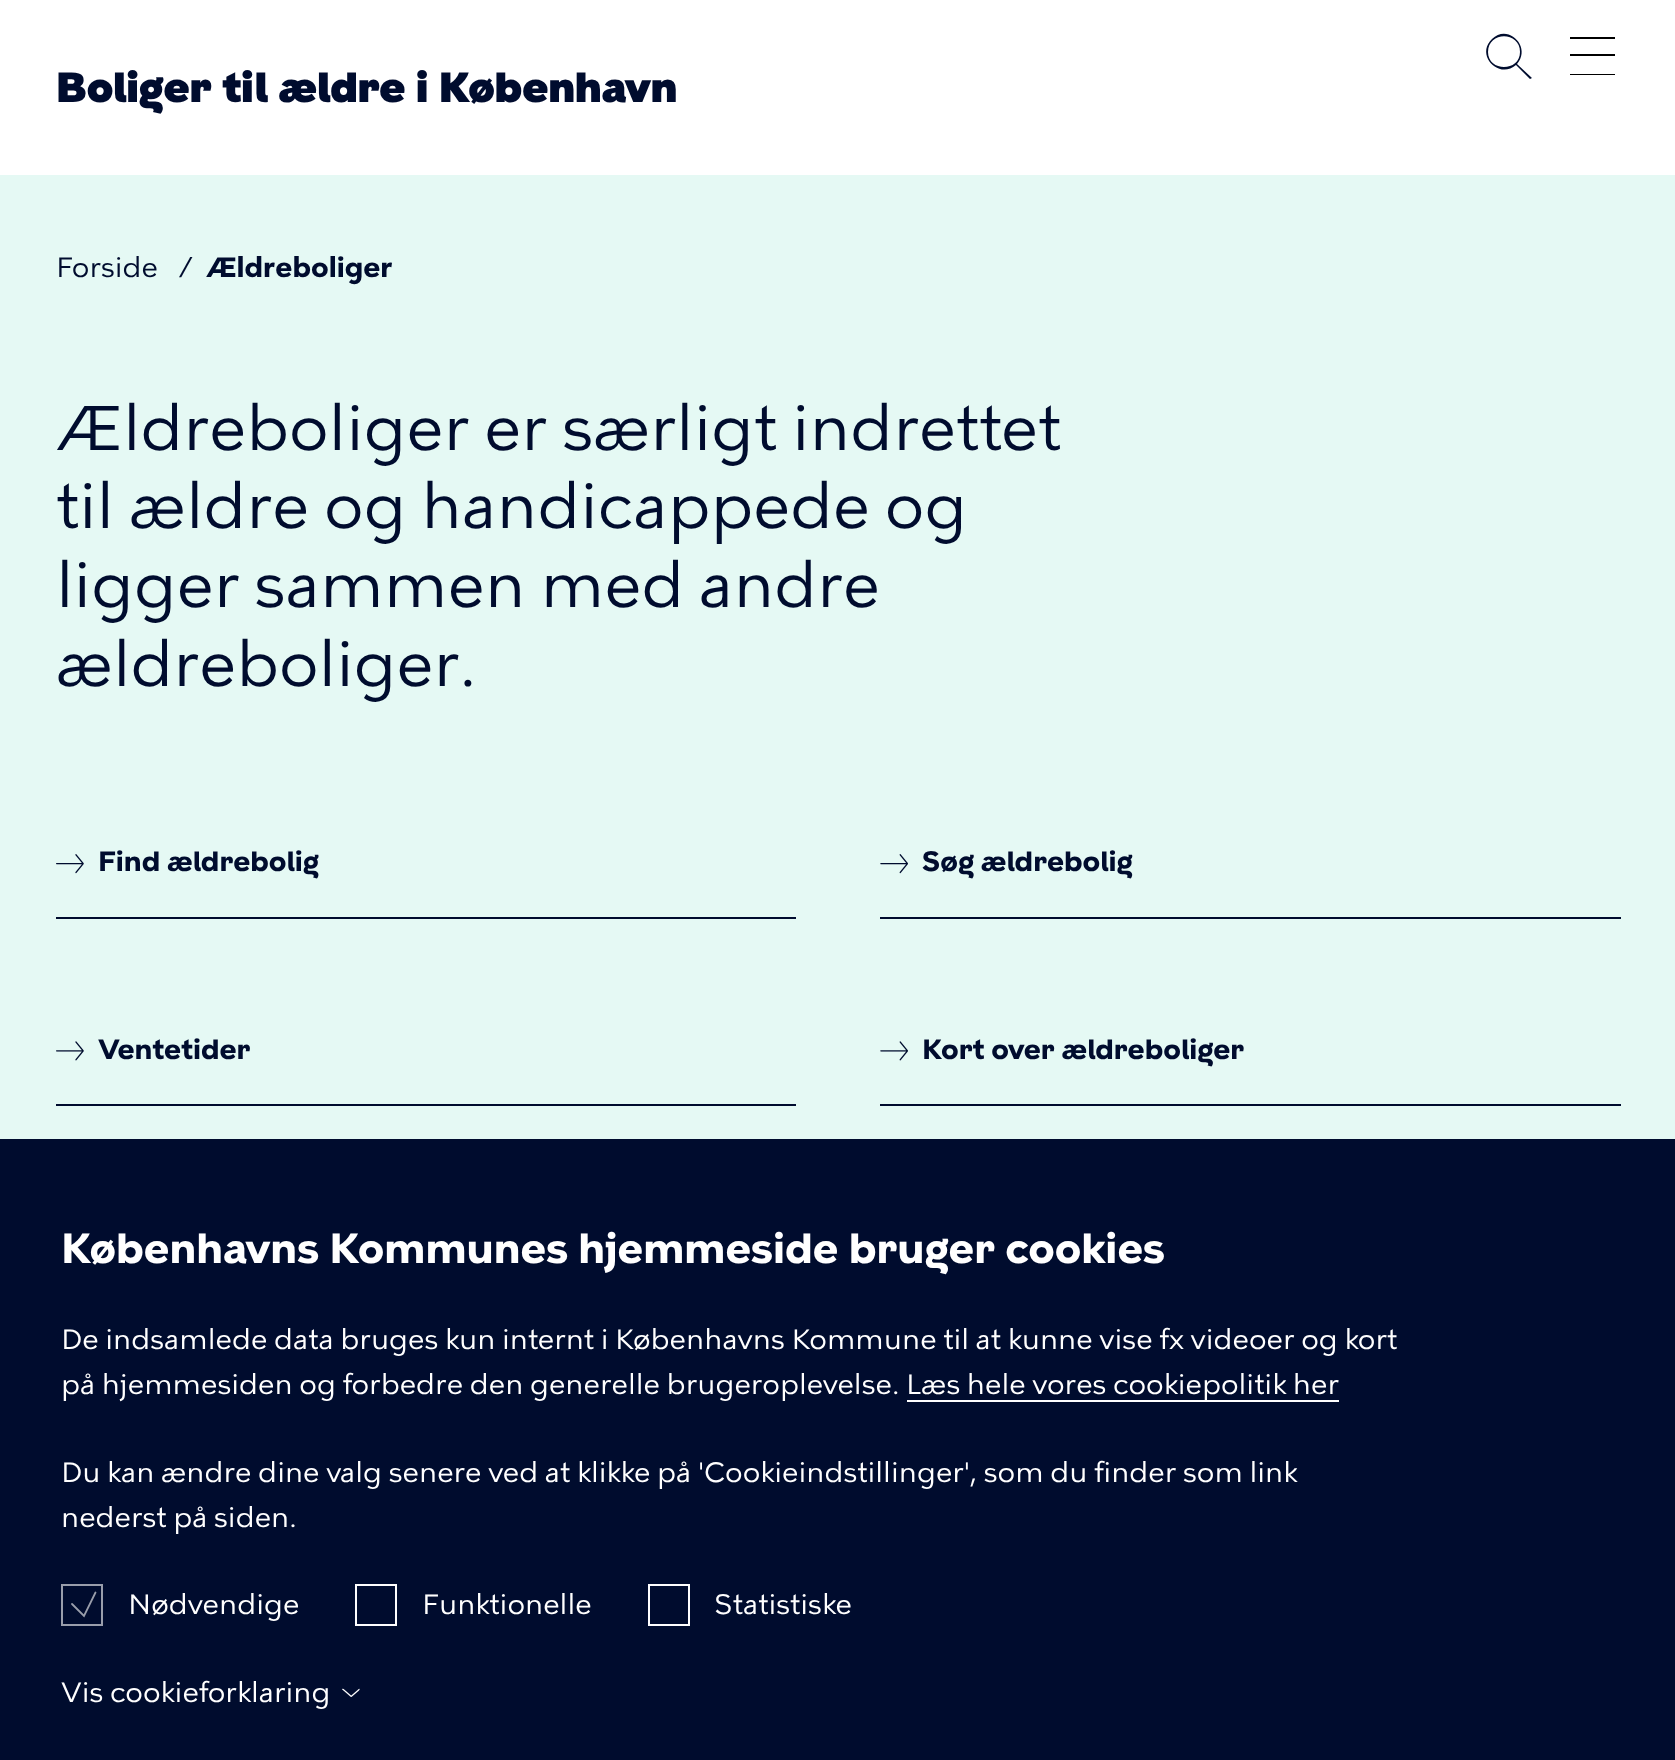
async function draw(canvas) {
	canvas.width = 1675;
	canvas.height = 1760;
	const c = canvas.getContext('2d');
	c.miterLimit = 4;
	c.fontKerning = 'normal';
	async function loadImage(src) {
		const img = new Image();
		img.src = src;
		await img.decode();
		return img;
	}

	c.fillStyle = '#e5f9f4';
	c.fillRect(0, 0, 1675, 1760);
	c.fillStyle = '#fff';
	c.fillRect(0, 0, 1675, 175);
	c.fillStyle = '#000c2e';
	c.beginPath();
	c.moveTo(1520, 52);
	c.bezierCurveTo(1520, 31, 1488, 31, 1488, 52);
	c.bezierCurveTo(1488, 72, 1520, 72, 1520, 52);
	c.closePath();
	c.moveTo(1532, 78);
	c.lineTo(1530, 79);
	c.lineTo(1516, 65);
	c.bezierCurveTo(1499, 80, 1475, 55, 1492, 39);
	c.bezierCurveTo(1508, 23, 1532, 47, 1517, 64);
	c.closePath();
	c.fill('evenodd');
	for (const [x, y, w, h, color] of [
		[1570, 37, 45, 2, '#000'],
		[1570, 54, 45, 2, '#000'],
		[1570, 74, 45, 1, '#000'],
	]) {
		c.fillStyle = color;
		c.fillRect(x, y, w, h);
	}
	c.font = '900 42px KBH';
	c.fillStyle = '#000c2e';
	c.fillText('Boliger til ældre i København', 56, 102);
	c.font = '28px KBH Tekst';
	c.fillText('Forside', 56, 277);
	c.fillText('/', 179, 277);
	c.font = 'bold 28px KBH Tekst';
	c.fillText('Ældreboliger', 206, 277);
	c.font = '63px KBH Tekst';
	for (const [text, x, y] of [
		['Ældreboliger er særligt indrettet', 56, 450],
		['til ældre og handicappede og', 56, 528],
		['ligger sammen med andre', 56, 607],
		['ældreboliger.', 56, 686],
	]) {
		c.fillText(text, x, y);
	}
	c.drawImage(await loadImage('img1.png'), 56, 854, 28, 20);
	c.font = 'bold 28px KBH';
	c.fillText('Find ældrebolig', 98, 871);
	c.fillRect(56, 917, 740, 2);
	c.drawImage(await loadImage('img2.png'), 880, 854, 28, 20);
	c.fillText('Søg ældrebolig', 922, 871);
	c.fillRect(880, 917, 741, 2);
	c.drawImage(await loadImage('img3.png'), 56, 1041, 28, 20);
	c.fillText('Ventetider', 98, 1059);
	c.fillRect(56, 1104, 740, 2);
	c.drawImage(await loadImage('img4.png'), 880, 1041, 28, 20);
	c.fillText('Kort over ældreboliger', 922, 1059);
	c.fillRect(880, 1104, 741, 2);
	c.fillRect(0, 1139, 1675, 621);
	c.font = 'bold 42px KBH';
	c.fillStyle = '#fff';
	c.fillText('Københavns Kommunes hjemmeside bruger cookies', 61, 1263);
	c.font = '28px KBH Tekst';
	c.fillText('De indsamlede data bruges kun internt i Københavns Kommune til at kunne vise fx videoer og kort', 61, 1349);
	c.fillText('på hjemmesiden og forbedre den generelle brugeroplevelse.', 61, 1394);
	c.fillRect(907, 1400, 432, 2);
	for (const [text, x, y] of [
		['Læs hele vores cookiepolitik her', 906, 1394],
		['Du kan ændre dine valg senere ved at klikke på \'Cookieindstillinger\', som du finder som link', 61, 1482],
		['nederst på siden.', 61, 1527],
	]) {
		c.fillText(text, x, y);
	}
	c.strokeStyle = '#999eab';
	c.lineWidth = 2;
	c.strokeRect(62, 1585, 40, 40);
	c.beginPath();
	c.moveTo(72, 1604);
	c.lineTo(84, 1616);
	c.lineTo(95.5, 1592.5);
	c.lineWidth = 1.8;
	c.lineCap = 'round';
	c.stroke();
	c.fillText('Nødvendige', 128, 1614);
	c.strokeStyle = '#fff';
	c.lineWidth = 2;
	c.strokeRect(356, 1585, 40, 40);
	c.fillText('Funktionelle', 422, 1614);
	c.strokeRect(649, 1585, 40, 40);
	c.fillText('Statistiske', 714, 1614);
	c.fillText('Vis cookieforklaring', 61, 1702);
	c.drawImage(await loadImage('img5.png'), 342, 1688, 18, 9);
}

draw(document.querySelector('canvas'));
